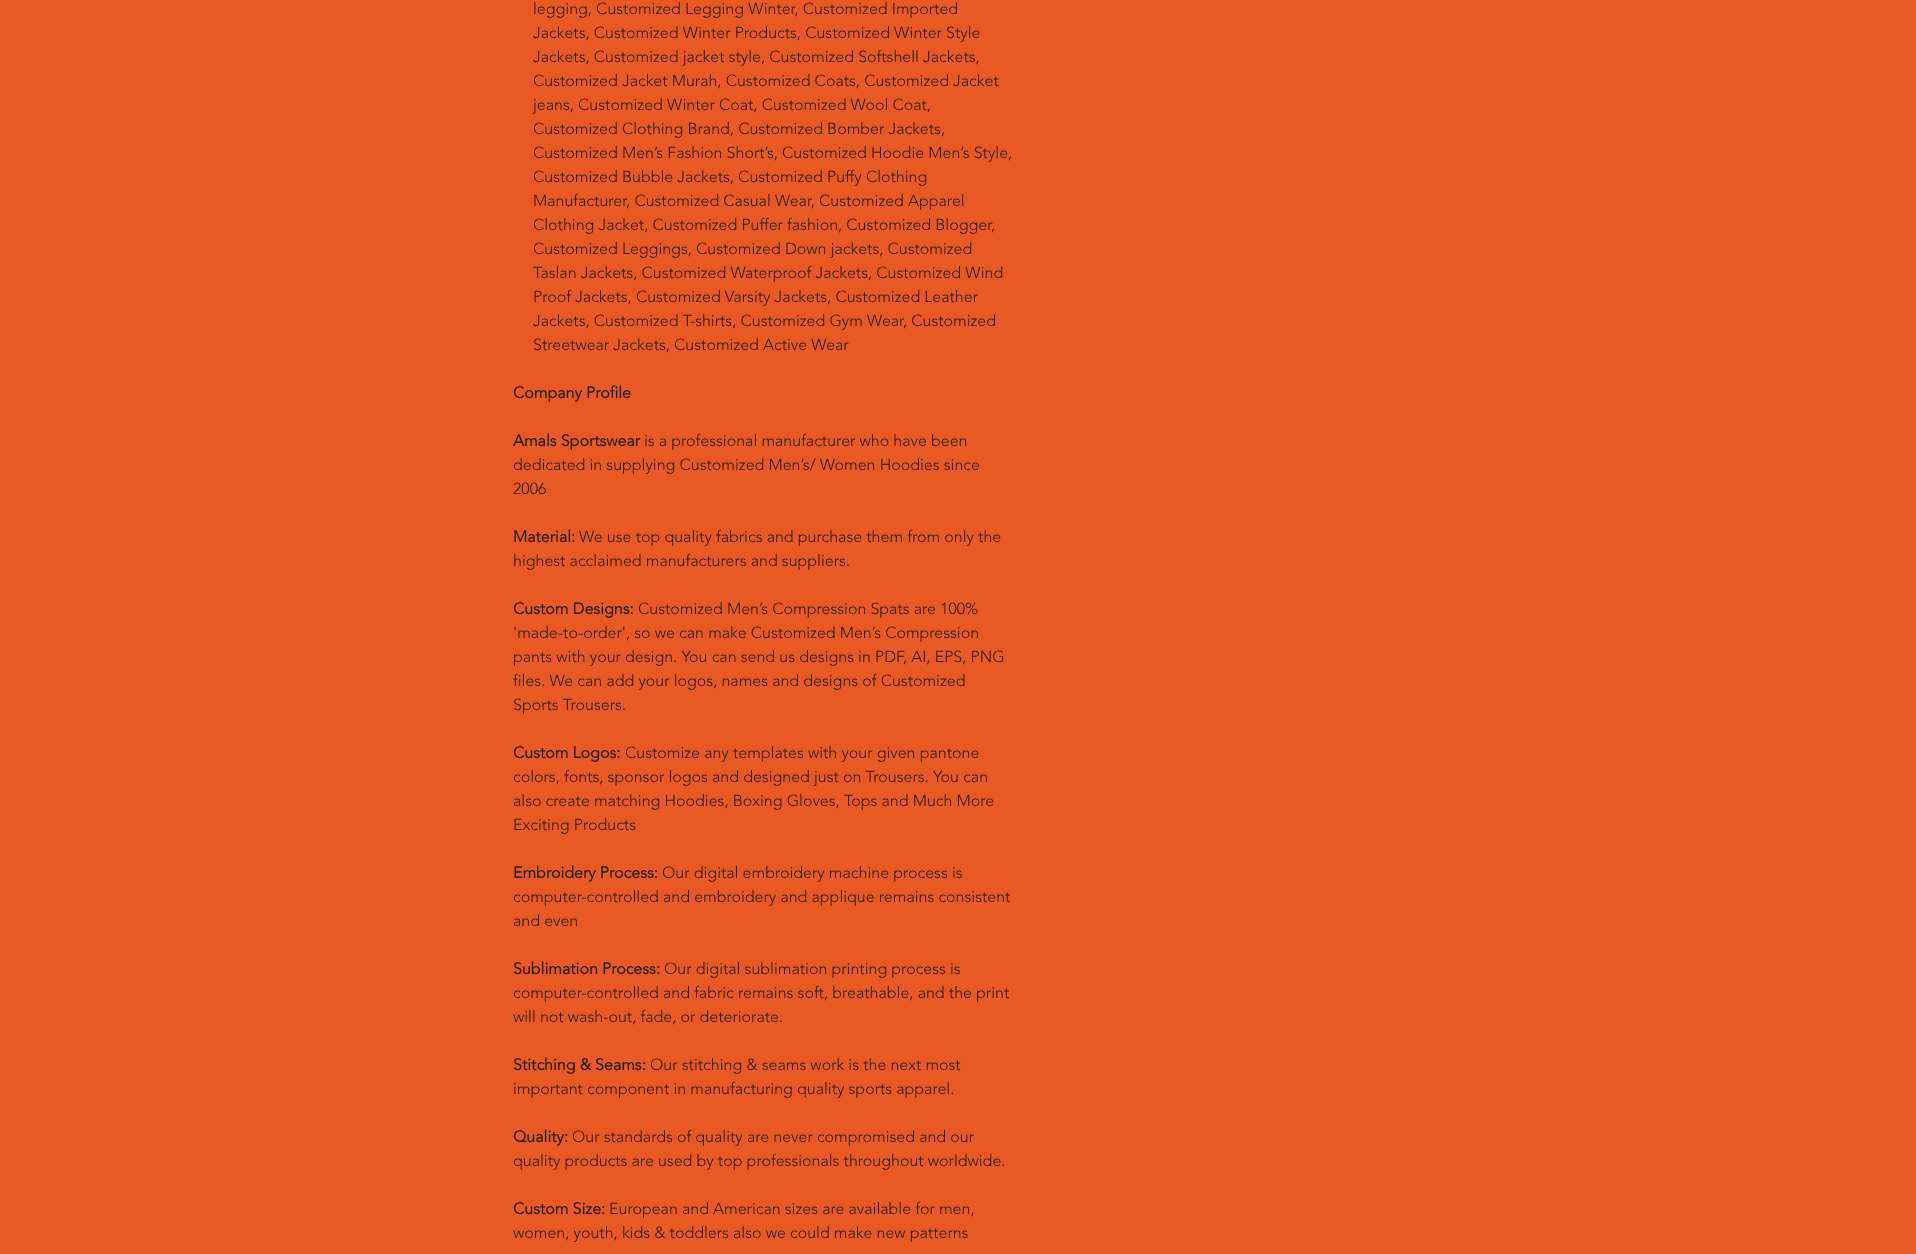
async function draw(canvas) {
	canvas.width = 1916;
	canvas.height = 1254;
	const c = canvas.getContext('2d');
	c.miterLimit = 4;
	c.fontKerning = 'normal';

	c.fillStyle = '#ea5823';
	c.fillRect(0, 0, 1916, 1254);
	c.font = '300 16px "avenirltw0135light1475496"';
	c.fillStyle = '#1f1f1f';
	for (const [text, x, y] of [
		['legging, Customized Legging Winter, Customized Imported', 533, 14],
		['Jackets, Customized Winter Products, Customized Winter Style', 533, 38],
		['Jackets, Customized jacket style, Customized Softshell Jackets,', 533, 62],
		['Customized Jacket Murah, Customized Coats, Customized Jacket', 533, 86],
		['jeans, Customized Winter Coat, Customized Wool Coat,', 533, 110],
		['Customized Clothing Brand, Customized Bomber Jackets,', 533, 134],
		['Customized Men’s Fashion Short’s, Customized Hoodie Men’s Style,', 533, 158],
		['Customized Bubble Jackets, Customized Puffy Clothing', 533, 182],
		['Manufacturer, Customized Casual Wear, Customized Apparel', 533, 206],
		['Clothing Jacket, Customized Puffer fashion, Customized Blogger,', 533, 230],
		['Customized Leggings, Customized Down jackets, Customized', 533, 254],
		['Taslan Jackets, Customized Waterproof Jackets, Customized Wind', 533, 278],
		['Proof Jackets, Customized Varsity Jackets, Customized Leather', 533, 302],
		['Jackets, Customized T-shirts, Customized Gym Wear, Customized', 533, 326],
		['Streetwear Jackets, Customized Active Wear', 533, 350],
	]) {
		c.fillText(text, x, y);
	}
	c.font = 'bold 16px "avenirltw0135light1475496"';
	c.fillText('Company Profile', 513, 398);
	c.fillText('Amals Sportswear', 513, 446);
	c.font = '300 16px "avenirltw0135light1475496"';
	for (const [text, x, y] of [
		['is a professional manufacturer who have been', 644, 446],
		['dedicated in supplying Customized Men’s/ Women Hoodies since', 513, 470],
		['2006', 513, 494],
	]) {
		c.fillText(text, x, y);
	}
	c.font = 'bold 16px "avenirltw0135light1475496"';
	c.fillText('Material:', 513, 542);
	c.font = '300 16px "avenirltw0135light1475496"';
	c.fillText('We use top quality fabrics and purchase them from only the', 579, 542);
	c.fillText('highest acclaimed manufacturers and suppliers.', 513, 566);
	c.font = 'bold 16px "avenirltw0135light1475496"';
	c.fillText('Custom Designs:', 513, 614);
	c.font = '300 16px "avenirltw0135light1475496"';
	for (const [text, x, y] of [
		['Customized Men’s Compression Spats are 100%', 638, 614],
		['\'made-to-order\', so we can make Customized Men’s Compression', 513, 638],
		['pants with your design. You can send us designs in PDF, AI, EPS, PNG', 513, 662],
		['files. We can add your logos, names and designs of Customized', 513, 686],
		['Sports Trousers.', 513, 710],
	]) {
		c.fillText(text, x, y);
	}
	c.font = 'bold 16px "avenirltw0135light1475496"';
	c.fillText('Custom Logos:', 513, 758);
	c.font = '300 16px "avenirltw0135light1475496"';
	for (const [text, x, y] of [
		['Customize any templates with your given pantone', 625, 758],
		['colors, fonts, sponsor logos and designed just on Trousers. You can', 513, 782],
		['also create matching Hoodies, Boxing Gloves, Tops and Much More', 513, 806],
		['Exciting Products', 513, 830],
	]) {
		c.fillText(text, x, y);
	}
	c.font = 'bold 16px "avenirltw0135light1475496"';
	c.fillText('Embroidery Process:', 513, 878);
	c.font = '300 16px "avenirltw0135light1475496"';
	for (const [text, x, y] of [
		['Our digital embroidery machine process is', 662, 878],
		['computer-controlled and embroidery and applique remains consistent', 513, 902],
		['and even', 513, 926],
	]) {
		c.fillText(text, x, y);
	}
	c.font = 'bold 16px "avenirltw0135light1475496"';
	c.fillText('Sublimation Process:', 513, 974);
	c.font = '300 16px "avenirltw0135light1475496"';
	for (const [text, x, y] of [
		['Our digital sublimation printing process is', 664, 974],
		['computer-controlled and fabric remains soft, breathable, and the print', 513, 998],
		['will not wash-out, fade, or deteriorate.', 513, 1022],
	]) {
		c.fillText(text, x, y);
	}
	c.font = 'bold 16px "avenirltw0135light1475496"';
	c.fillText('Stitching & Seams:', 513, 1070);
	c.font = '300 16px "avenirltw0135light1475496"';
	c.fillText('Our stitching & seams work is the next most', 650, 1070);
	c.fillText('important component in manufacturing quality sports apparel.', 513, 1094);
	c.font = 'bold 16px "avenirltw0135light1475496"';
	c.fillText('Quality:', 513, 1142);
	c.font = '300 16px "avenirltw0135light1475496"';
	c.fillText('Our standards of quality are never compromised and our', 572, 1142);
	c.fillText('quality products are used by top professionals throughout worldwide.', 513, 1166);
	c.font = 'bold 16px "avenirltw0135light1475496"';
	c.fillText('Custom Size:', 513, 1214);
	c.font = '300 16px "avenirltw0135light1475496"';
	c.fillText('European and American sizes are available for men,', 609, 1214);
	c.fillText('women, youth, kids & toddlers also we could make new patterns', 513, 1238);
}

draw(document.querySelector('canvas'));
